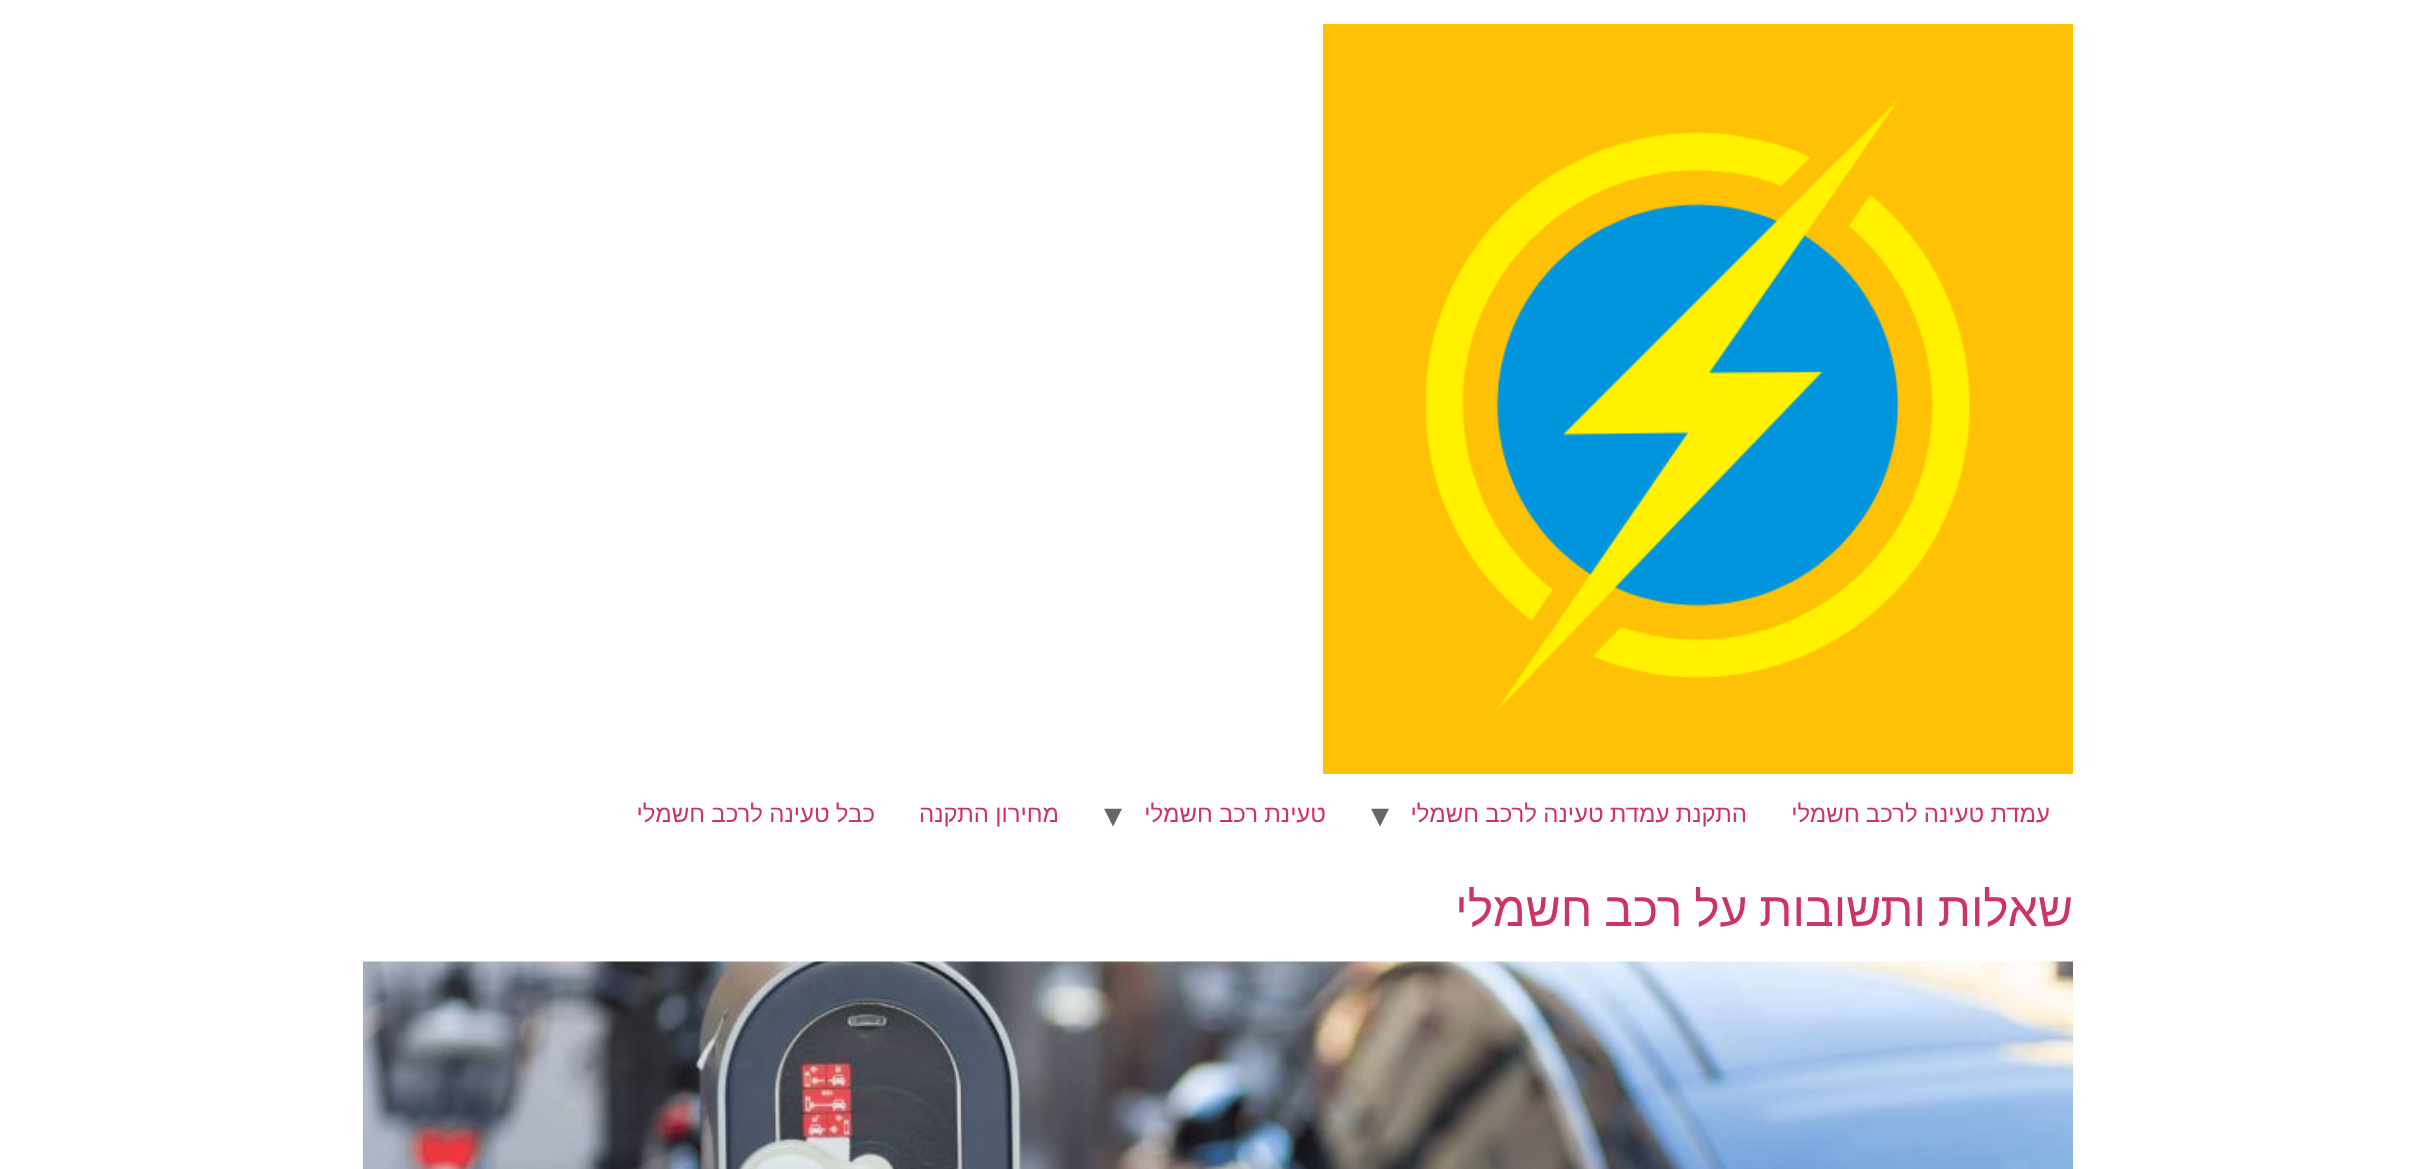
async function draw(canvas) {
	canvas.width = 2436;
	canvas.height = 1169;
	const c = canvas.getContext('2d');
	c.miterLimit = 4;
	c.fontKerning = 'normal';
	async function loadImage(src) {
		const img = new Image();
		img.src = src;
		await img.decode();
		return img;
	}

	c.fillStyle = '#fff';
	c.fillRect(0, 0, 2436, 1169);
	c.drawImage(await loadImage('img1.png'), 1323, 24, 750, 750);
	c.wordSpacing = '-0.5px';
	c.direction = 'rtl';
	c.font = '24px Liberation Sans';
	c.fillStyle = '#c36';
	c.fillText('עמדת טעינה לרכב חשמלי', 2050, 822);
	c.fillText('התקנת עמדת טעינה לרכב חשמלי', 1747, 822);
	c.wordSpacing = '0px';
	c.direction = 'ltr';
	c.font = '36px DejaVu Sans';
	c.fillStyle = '#666';
	c.fillText('▾', 1371, 827);
	c.wordSpacing = '-0.5px';
	c.direction = 'rtl';
	c.font = '24px Liberation Sans';
	c.fillStyle = '#c36';
	c.fillText('טעינת רכב חשמלי', 1326, 822);
	c.wordSpacing = '0px';
	c.direction = 'ltr';
	c.font = '36px DejaVu Sans';
	c.fillStyle = '#666';
	c.fillText('▾', 1104, 827);
	c.wordSpacing = '-0.5px';
	c.direction = 'rtl';
	c.font = '24px Liberation Sans';
	c.fillStyle = '#c36';
	c.fillText('מחירון התקנה', 1059, 822);
	c.fillText('כבל טעינה לרכב חשמלי', 875, 822);
	c.wordSpacing = '-1.5px';
	c.font = '48px Liberation Sans';
	c.fillText('שאלות ותשובות על רכב חשמלי', 2073, 926);
	c.drawImage(await loadImage('img2.png'), 363, 961, 1710, 208);
}

draw(document.querySelector('canvas'));
